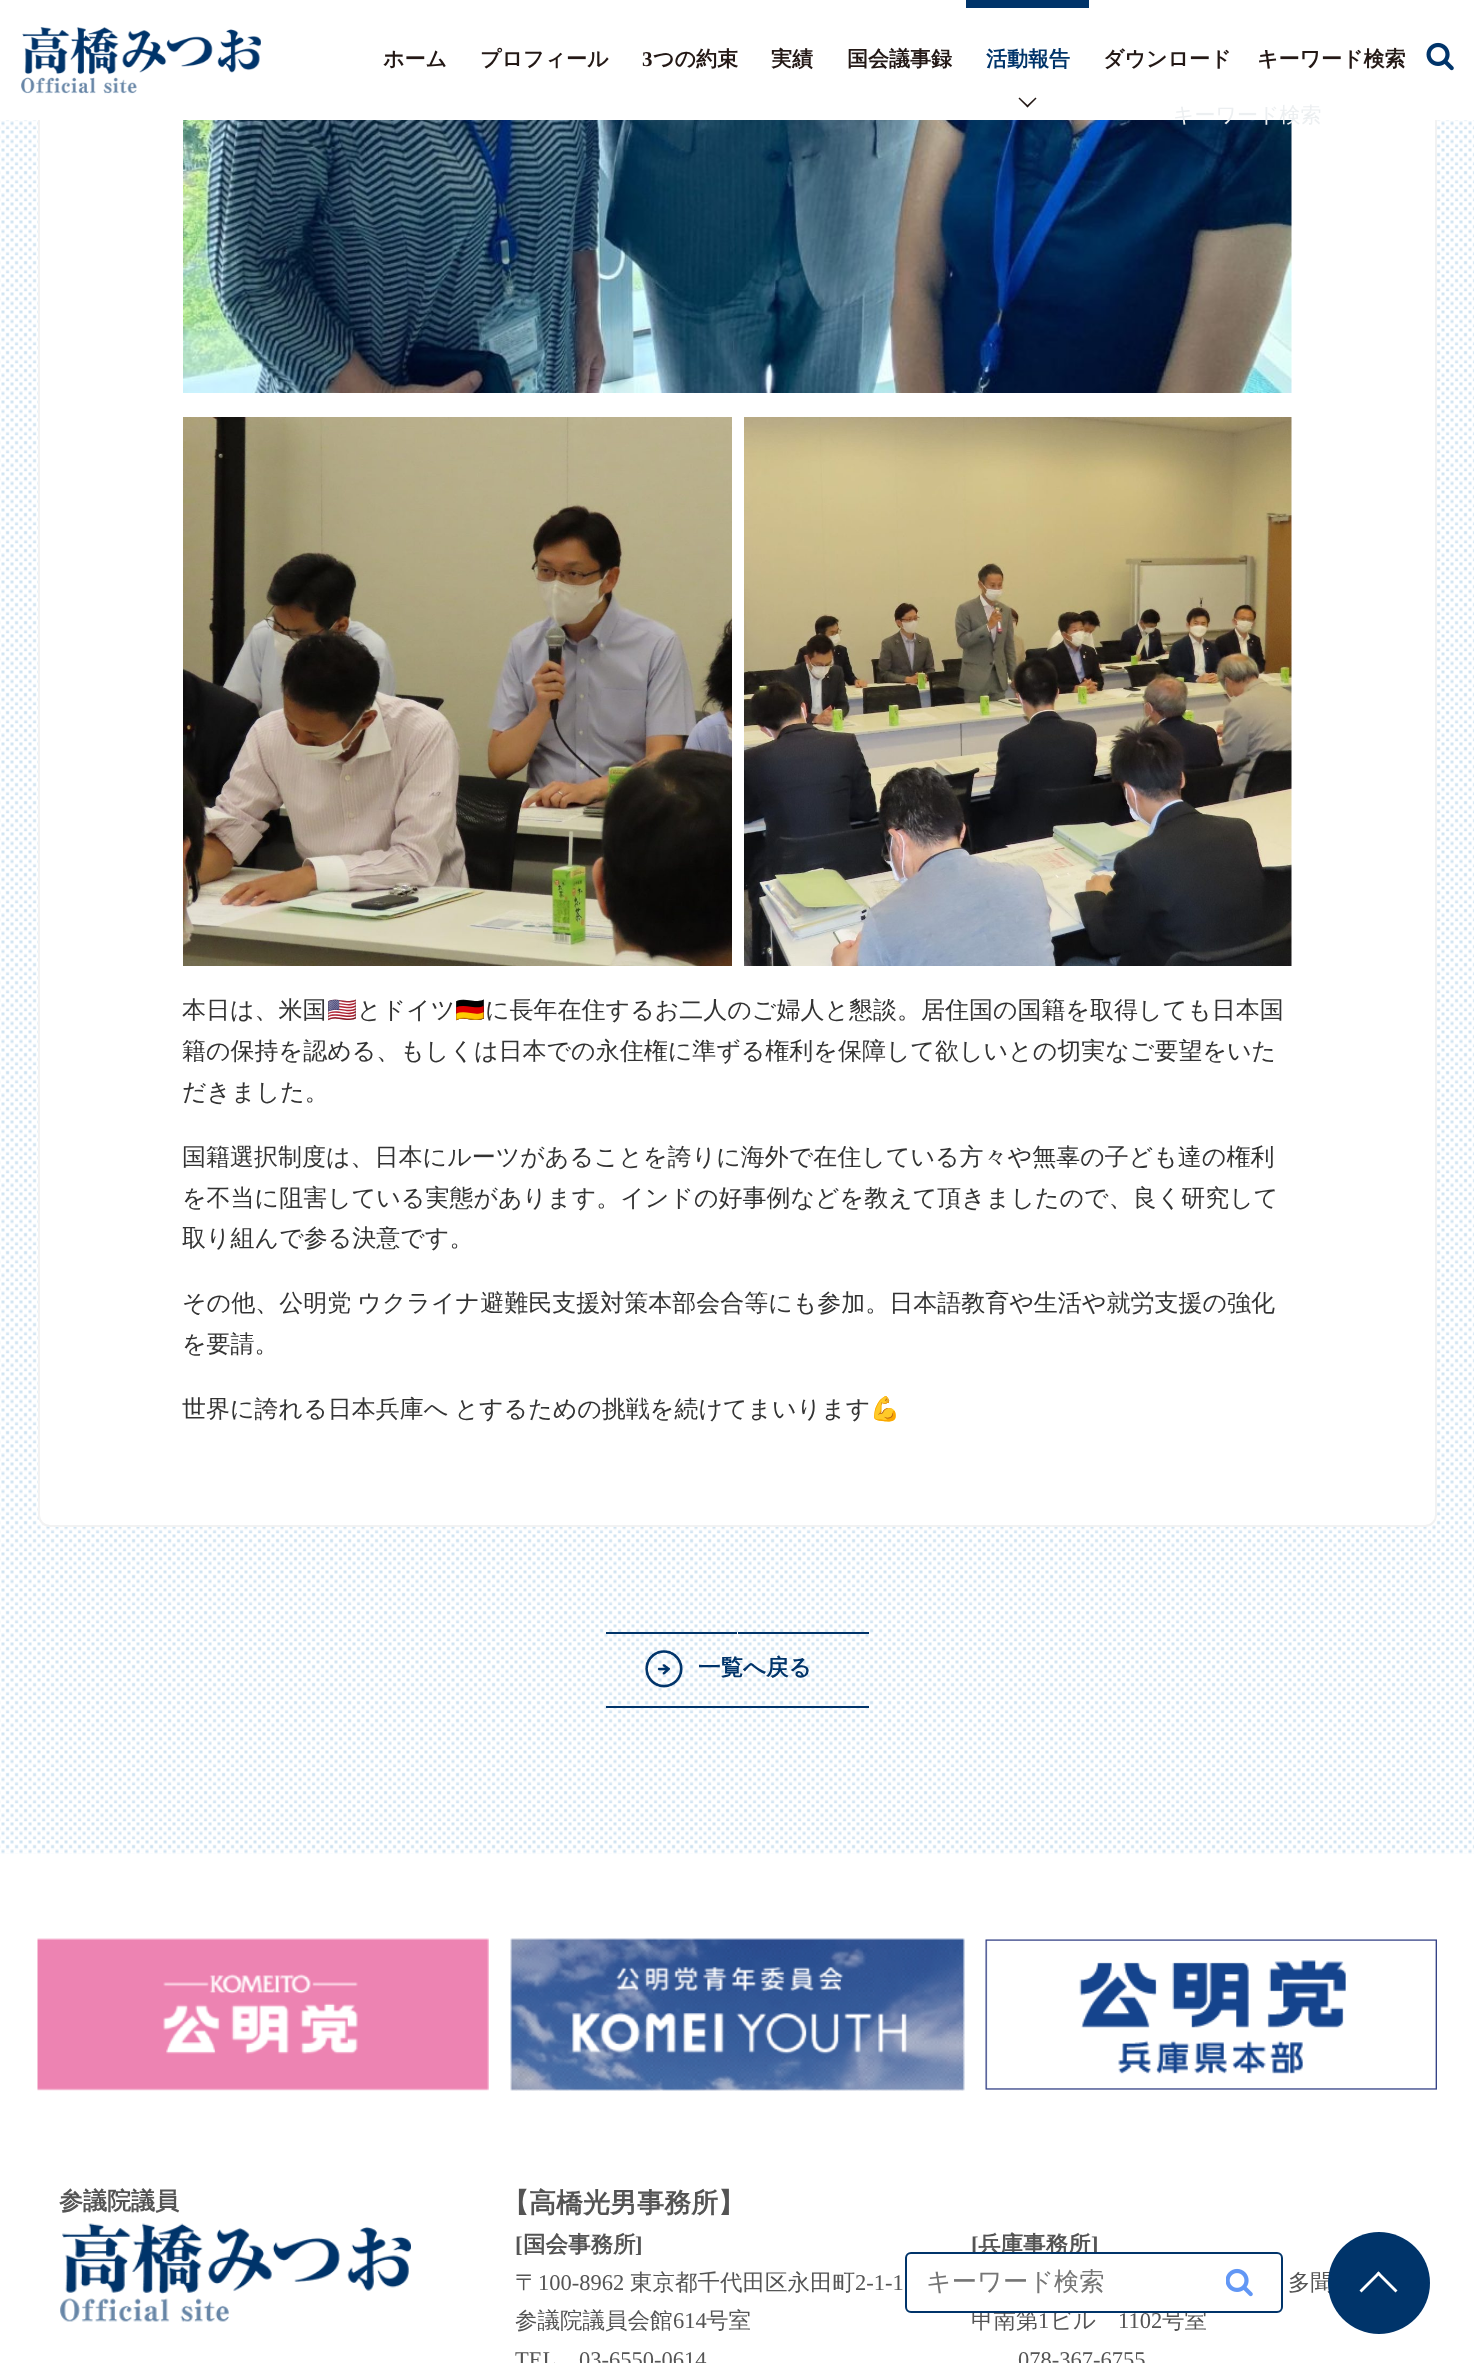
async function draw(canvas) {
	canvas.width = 1474;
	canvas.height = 2363;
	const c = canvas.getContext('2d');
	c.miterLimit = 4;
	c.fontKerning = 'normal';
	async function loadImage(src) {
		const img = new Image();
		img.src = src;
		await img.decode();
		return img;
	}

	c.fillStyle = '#fff';
	c.fillRect(0, 0, 1474, 2363);
	c.drawImage(await loadImage('img3.png'), 0, 120, 1474, 1734);
	c.beginPath();
	c.roundRect(39, -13, 1397, 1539, 11);
	c.fill();
	c.strokeStyle = '#f2f2f2';
	c.lineWidth = 2;
	c.stroke();
	c.fillRect(38, 0, 1399, 120);
	c.drawImage(await loadImage('img1.png'), 21, 27, 240, 67);
	c.font = 'bold 21px WenQuanYi Zen Hei';
	c.fillStyle = '#231815';
	c.fillText('ホーム', 383, 66);
	c.fillText('プロフィール', 480, 66);
	c.font = 'bold 21px Liberation Serif';
	c.fillText('3', 642, 66);
	c.font = 'bold 21px WenQuanYi Zen Hei';
	for (const [text, x, y] of [
		['つの約束', 653, 66],
		['実績', 771, 66],
		['国会議事録', 847, 66],
	]) {
		c.fillText(text, x, y);
	}
	c.fillStyle = '#00346a';
	c.fillRect(966, 0, 123, 8);
	c.fillText('活動報告', 986, 66);
	c.fillStyle = '#231815';
	c.beginPath();
	c.moveTo(1026.5, 106);
	c.lineTo(1035.5, 97.5);
	c.lineTo(1036.5, 98.5);
	c.lineTo(1027.5, 107.5);
	c.closePath();
	c.fill();
	c.beginPath();
	c.moveTo(1018.5, 98.5);
	c.lineTo(1019.5, 97.5);
	c.lineTo(1028.5, 106);
	c.lineTo(1027.5, 107.5);
	c.closePath();
	c.fill();
	c.fillText('ダウンロード', 1103, 66);
	c.fillText('キーワード検索', 1257, 66);
	c.drawImage(await loadImage('img2.png'), 1426, 42, 28, 29);
	c.drawImage(await loadImage('img4.png'), 183, 120, 1109, 273);
	c.font = '500 21px WenQuanYi Zen Hei';
	c.fillStyle = '#eceff1';
	c.fillText('キーワード検索', 1173, 122);
	c.drawImage(await loadImage('img5.png'), 183, 417, 549, 549);
	c.drawImage(await loadImage('img6.png'), 744, 417, 548, 549);
	c.font = '500 24px WenQuanYi Zen Hei';
	c.fillStyle = '#333';
	c.fillText('本日は、米国', 182, 1018);
	c.font = '24px Noto Color Emoji';
	c.fillText('🇺🇸', 327, 1018);
	c.font = '500 24px WenQuanYi Zen Hei';
	c.fillText('とドイツ', 357, 1018);
	c.font = '24px Noto Color Emoji';
	c.fillText('🇩🇪', 455, 1018);
	c.font = '500 24px WenQuanYi Zen Hei';
	for (const [text, x, y] of [
		['に長年在住するお二人のご婦人と懇談。居住国の国籍を取得しても日本国', 485, 1018],
		['籍の保持を認める、もしくは日本での永住権に準ずる権利を保障して欲しいとの切実なご要望をいた', 182, 1059],
		['だきました。', 182, 1100],
		['国籍選択制度は、日本にルーツがあることを誇りに海外で在住している方々や無辜の子ども達の権利', 182, 1165],
		['を不当に阻害している実態があります。インドの好事例などを教えて頂きましたので、良く研究して', 182, 1206],
		['取り組んで参る決意です。', 182, 1246],
	]) {
		c.fillText(text, x, y);
	}
	c.wordSpacing = '-1px';
	c.fillText('その他、公明党 ウクライナ避難民支援対策本部会合等にも参加。日本語教育や生活や就労支援の強化', 182, 1311);
	c.wordSpacing = '0px';
	c.fillText('を要請。', 182, 1352);
	c.wordSpacing = '-1px';
	c.fillText('世界に誇れる日本兵庫へ とするための挑戦を続けてまいります', 182, 1417);
	c.wordSpacing = '0px';
	c.font = '24px Noto Color Emoji';
	c.fillText('💪', 870, 1417);
	for (const [x, y, w, h, color] of [
		[606, 1706, 263, 2, '#00346a'],
		[606, 1632, 131, 2, '#00346a'],
		[738, 1632, 131, 2, '#00346a'],
	]) {
		c.fillStyle = color;
		c.fillRect(x, y, w, h);
	}
	c.drawImage(await loadImage('img7.png'), 645, 1650, 38, 38);
	c.font = 'bold 22.5px WenQuanYi Zen Hei';
	c.fillText('一覧へ戻る', 698, 1675);
	c.drawImage(await loadImage('img8.png'), 37, 1938, 452, 153);
	c.drawImage(await loadImage('img9.png'), 510, 1938, 455, 153);
	c.drawImage(await loadImage('img10.png'), 985, 1939, 452, 151);
	c.font = 'bold 24px WenQuanYi Zen Hei';
	c.fillStyle = '#545454';
	c.fillText('参議院議員', 59, 2209);
	c.drawImage(await loadImage('img11.png'), 60, 2223, 351, 99);
	c.font = 'bold 27px WenQuanYi Zen Hei';
	c.fillText('【高橋光男事務所】', 502, 2212);
	c.font = 'bold 22.5px Liberation Serif';
	c.fillText('[', 515, 2252);
	c.font = 'bold 22.5px WenQuanYi Zen Hei';
	c.fillText('国会事務所', 523, 2252);
	c.font = 'bold 22.5px Liberation Serif';
	c.fillText(']', 635, 2252);
	c.font = '500 22.5px WenQuanYi Zen Hei';
	c.fillText('〒', 515, 2290);
	c.font = '22.5px Liberation Serif';
	c.fillText('100-8962', 538, 2290);
	c.font = '500 22.5px WenQuanYi Zen Hei';
	c.fillText('東京都千代田区永田町', 630, 2290);
	c.font = '22.5px Liberation Serif';
	c.fillText('2-1-1', 855, 2290);
	c.font = '500 22.5px WenQuanYi Zen Hei';
	c.fillText('参議院議員会館', 515, 2328);
	c.font = '22.5px Liberation Serif';
	c.fillText('614', 673, 2328);
	c.font = '500 22.5px WenQuanYi Zen Hei';
	c.fillText('号室', 706, 2328);
	c.font = '22.5px Liberation Serif';
	c.fillText('TEL', 515, 2367);
	c.fillText('03-6550-0614', 579, 2367);
	c.font = 'bold 22.5px Liberation Serif';
	c.fillText('[', 971, 2252);
	c.font = 'bold 22.5px WenQuanYi Zen Hei';
	c.fillText('兵庫事務所', 978, 2252);
	c.font = 'bold 22.5px Liberation Serif';
	c.fillText(']', 1091, 2252);
	c.font = '500 22.5px WenQuanYi Zen Hei';
	c.fillText('多聞', 1288, 2290);
	c.fillText('甲南第', 971, 2328);
	c.font = '22.5px Liberation Serif';
	c.fillText('1', 1038, 2328);
	c.font = '500 22.5px WenQuanYi Zen Hei';
	c.fillText('ビル', 1050, 2328);
	c.font = '22.5px Liberation Serif';
	c.fillText('1102', 1118, 2328);
	c.font = '500 22.5px WenQuanYi Zen Hei';
	c.fillText('号室', 1162, 2328);
	c.font = '22.5px Liberation Serif';
	c.fillText('078-367-6755', 1018, 2367);
	c.fillStyle = '#fff';
	c.beginPath();
	c.roundRect(906, 2253, 376, 59, 5);
	c.fill();
	c.strokeStyle = '#00346a';
	c.stroke();
	c.font = '500 25.25px WenQuanYi Zen Hei';
	c.fillStyle = '#757575';
	c.fillText('キーワード検索', 926, 2290);
	c.drawImage(await loadImage('img12.png'), 1226, 2268, 27, 29);
	c.fillStyle = '#00346a';
	c.beginPath();
	c.arc(1379, 2283, 51, 0, 2 * Math.PI);
	c.fill();
	c.fillStyle = '#fff';
	c.beginPath();
	c.moveTo(1378.5, 2271.5);
	c.lineTo(1397.5, 2290.5);
	c.lineTo(1395.5, 2292.5);
	c.lineTo(1376.5, 2273.5);
	c.closePath();
	c.fill();
	c.beginPath();
	c.moveTo(1378.5, 2271.5);
	c.lineTo(1380.5, 2273.5);
	c.lineTo(1361.5, 2292.5);
	c.lineTo(1359.5, 2290.5);
	c.closePath();
	c.fill();
}

draw(document.querySelector('canvas'));
